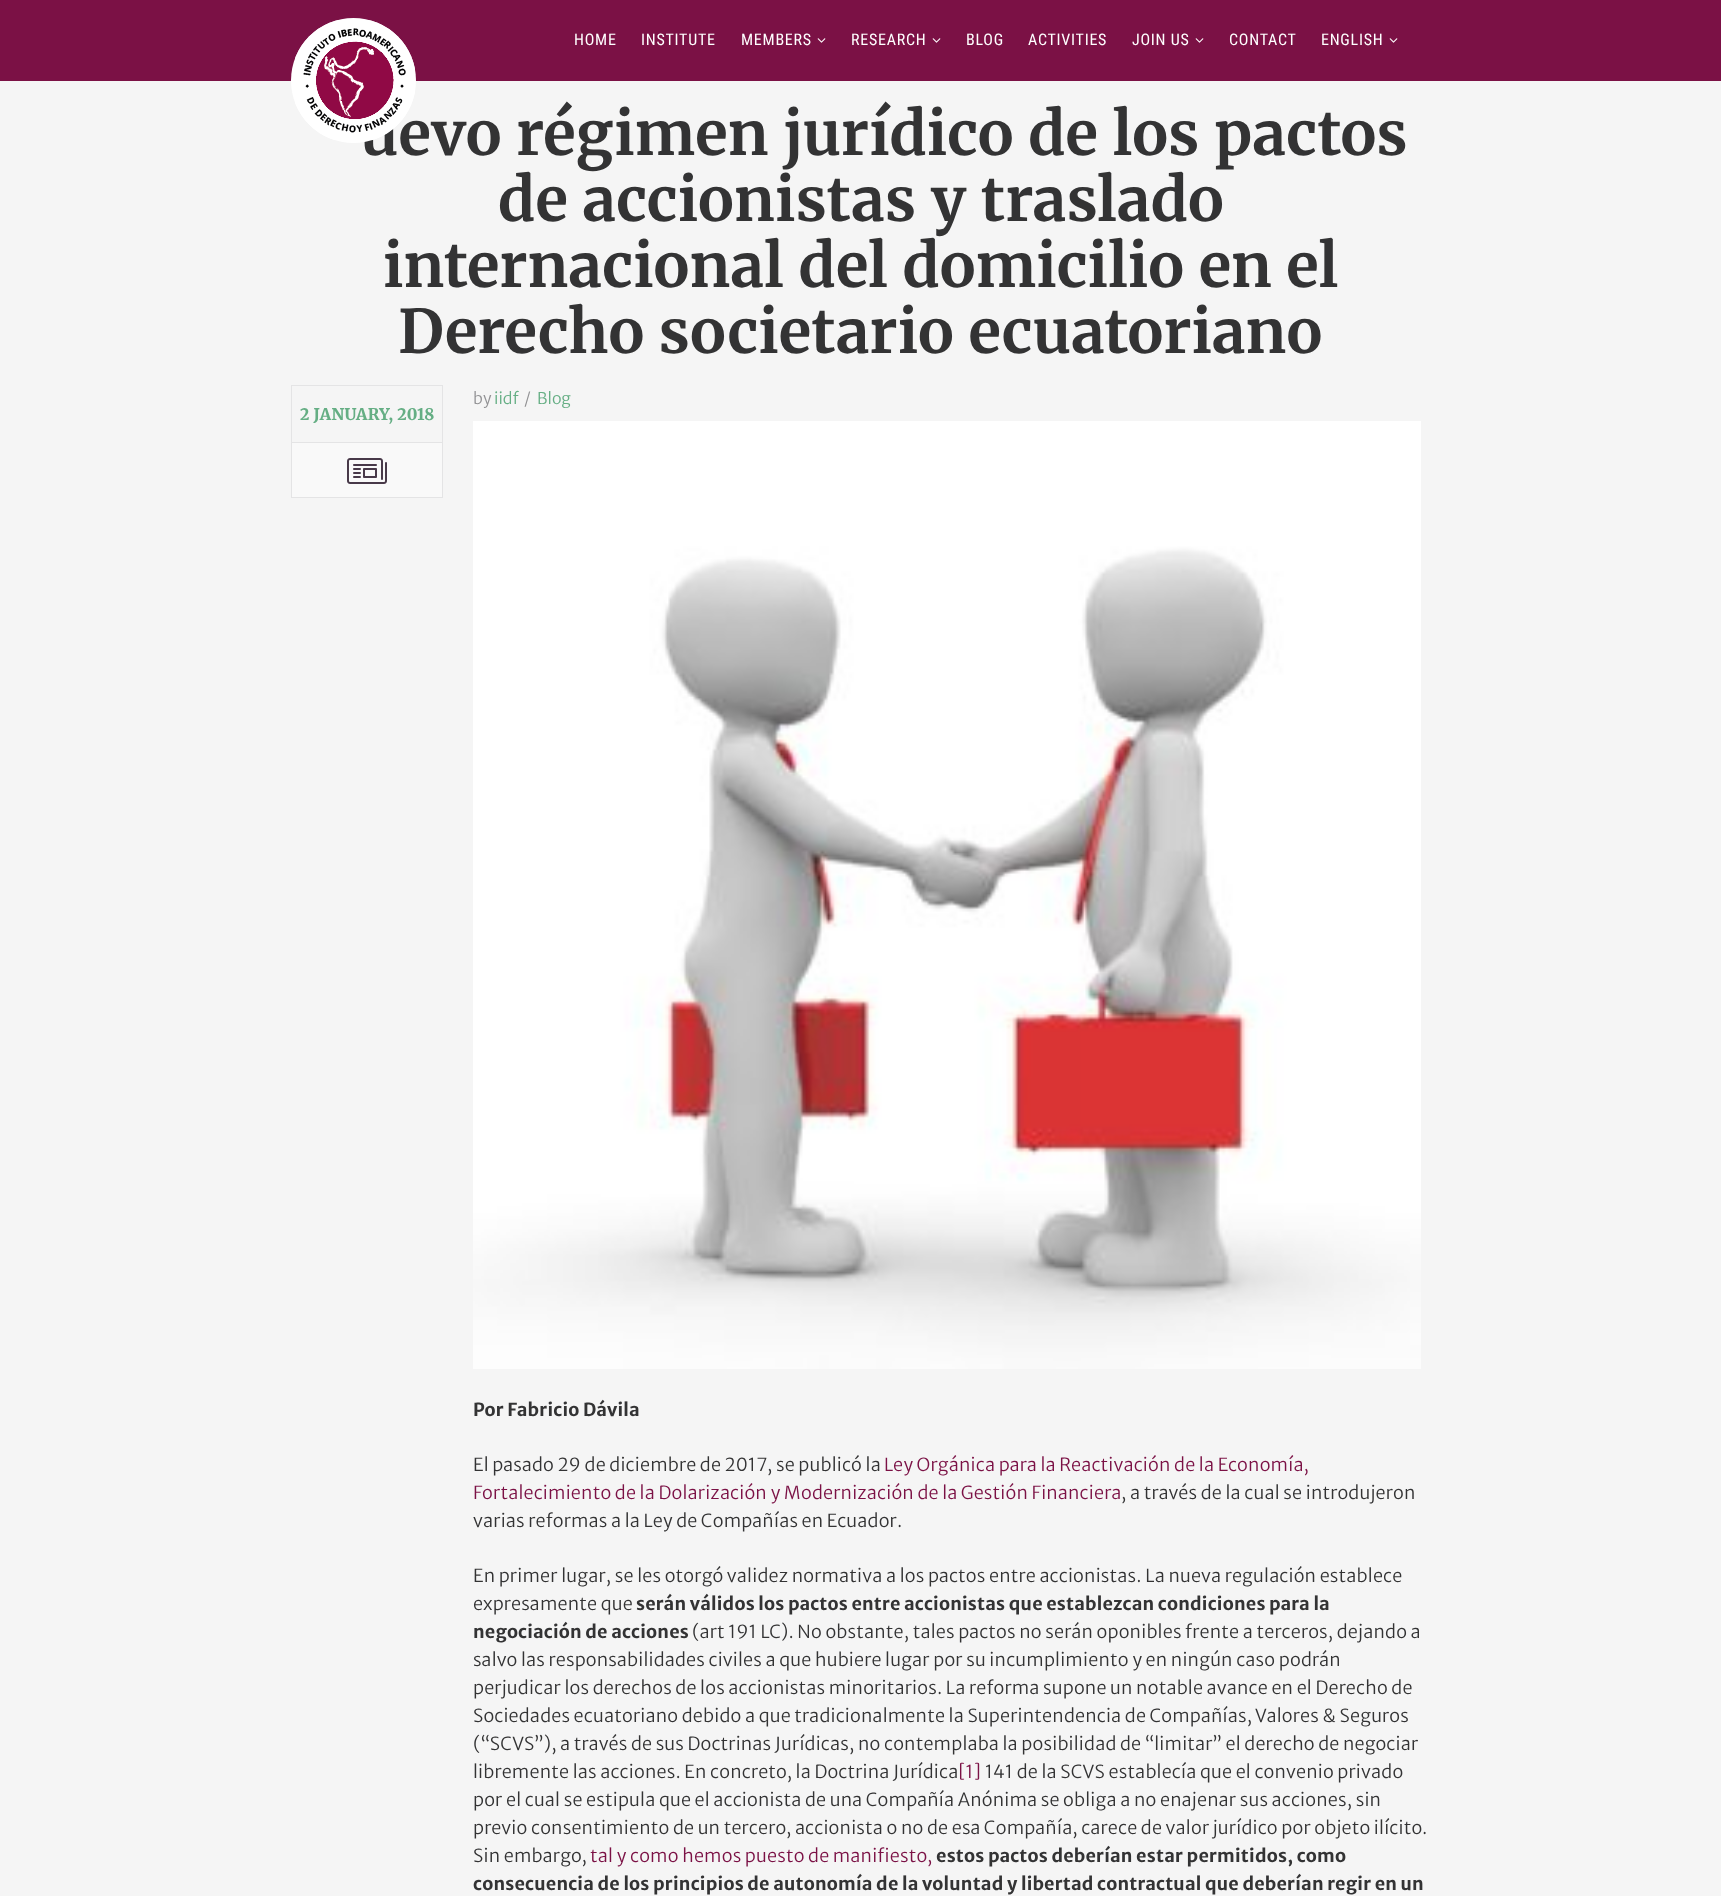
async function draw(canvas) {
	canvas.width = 1721;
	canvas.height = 1896;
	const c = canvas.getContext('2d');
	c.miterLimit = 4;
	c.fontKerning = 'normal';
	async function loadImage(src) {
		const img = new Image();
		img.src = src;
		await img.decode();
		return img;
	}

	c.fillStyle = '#f5f5f5';
	c.fillRect(0, 0, 1721, 1896);
	c.fillStyle = '#7b1145';
	c.fillRect(0, 0, 1721, 81);
	c.letterSpacing = '0.2px';
	c.font = 'bold 60px Merriweather';
	c.fillStyle = '#333334';
	c.fillText('uevo régimen jurídico de los pactos', 360, 155);
	c.fillStyle = '#fff';
	c.beginPath();
	c.arc(353.5, 80.5, 62.5, 0, 2 * Math.PI);
	c.fill();
	c.drawImage(await loadImage('img1.png'), 295, 20, 120, 120);
	c.letterSpacing = '0.75px';
	c.font = '16px Roboto Condensed';
	for (const [text, x, y] of [
		['HOME', 574, 45],
		['INSTITUTE', 641, 45],
		['MEMBERS', 741, 45],
	]) {
		c.fillText(text, x, y);
	}
	c.drawImage(await loadImage('img2.png'), 817, 38, 9, 5);
	c.fillText('RESEARCH', 851, 45);
	c.drawImage(await loadImage('img2.png'), 932, 38, 9, 5);
	for (const [text, x, y] of [
		['BLOG', 966, 45],
		['ACTIVITIES', 1028, 45],
		['JOIN US', 1132, 45],
	]) {
		c.fillText(text, x, y);
	}
	c.drawImage(await loadImage('img2.png'), 1195, 38, 9, 5);
	c.fillText('CONTACT', 1229, 45);
	c.fillText('ENGLISH', 1321, 45);
	c.drawImage(await loadImage('img2.png'), 1389, 38, 9, 5);
	c.letterSpacing = '0.2px';
	c.font = 'bold 60px Merriweather';
	c.fillStyle = '#333334';
	for (const [text, x, y] of [
		['de accionistas y traslado', 498, 221],
		['internacional del domicilio en el', 383, 287],
		['Derecho societario ecuatoriano', 398, 353],
	]) {
		c.fillText(text, x, y);
	}
	c.strokeStyle = '#e4e4e5';
	c.strokeRect(291.5, 385.5, 151, 112);
	c.font = '800 16px Merriweather';
	c.fillStyle = '#65ae84';
	c.fillText('2 JANUARY, 2018', 300, 420);
	c.fillStyle = '#f9f9f9';
	c.fillRect(292, 443, 150, 54);
	c.fillStyle = '#e4e4e5';
	c.fillRect(292, 442, 150, 1);
	c.drawImage(await loadImage('img3.png'), 347, 458, 40, 26);
	c.letterSpacing = '0px';
	c.font = '300 16px Merriweather Sans';
	c.fillStyle = '#929294';
	c.fillText('by', 473, 404);
	c.fillStyle = '#65ae84';
	c.fillText('iidf', 494, 404);
	c.fillStyle = '#929294';
	c.fillText('/', 524, 404);
	c.fillStyle = '#65ae84';
	c.fillText('Blog', 537, 404);
	c.drawImage(await loadImage('img4.png'), 473, 421, 948, 948);
	c.letterSpacing = '0.2px';
	c.font = 'bold 18px Merriweather Sans';
	c.fillStyle = '#333334';
	c.fillText('Por Fabricio Dávila', 473, 1416);
	c.font = '300 18px Merriweather Sans';
	c.fillText('El pasado 29 de diciembre de 2017, se publicó la', 473, 1471);
	c.fillStyle = '#7b1145';
	c.fillText('Ley Orgánica para la Reactivación de la Economía,', 884, 1471);
	c.fillText('Fortalecimiento de la Dolarización y Modernización de la Gestión Financiera', 473, 1499);
	c.fillStyle = '#333334';
	for (const [text, x, y] of [
		[', a través de la cual se introdujeron', 1121, 1499],
		['varias reformas a la Ley de Compañías en Ecuador.', 473, 1527],
		['En primer lugar, se les otorgó validez normativa a los pactos entre accionistas. La nueva regulación establece', 473, 1582],
		['expresamente que', 473, 1610],
	]) {
		c.fillText(text, x, y);
	}
	c.font = 'bold 18px Merriweather Sans';
	c.fillText('serán válidos los pactos entre accionistas que establezcan condiciones para la', 636, 1610);
	c.fillText('negociación de acciones', 473, 1638);
	c.font = '300 18px Merriweather Sans';
	for (const [text, x, y] of [
		['(art 191 LC). No obstante, tales pactos no serán oponibles frente a terceros, dejando a', 692, 1638],
		['salvo las responsabilidades civiles a que hubiere lugar por su incumplimiento y en ningún caso podrán', 473, 1666],
		['perjudicar los derechos de los accionistas minoritarios. La reforma supone un notable avance en el Derecho de', 473, 1694],
		['Sociedades ecuatoriano debido a que tradicionalmente la Superintendencia de Compañías, Valores & Seguros', 473, 1722],
		['(“SCVS”), a través de sus Doctrinas Jurídicas, no contemplaba la posibilidad de “limitar” el derecho de negociar', 473, 1750],
		['libremente las acciones. En concreto, la Doctrina Jurídica', 473, 1778],
	]) {
		c.fillText(text, x, y);
	}
	c.fillStyle = '#7b1145';
	c.fillText('[1]', 958, 1778);
	c.fillStyle = '#333334';
	for (const [text, x, y] of [
		['141 de la SCVS establecía que el convenio privado', 985, 1778],
		['por el cual se estipula que el accionista de una Compañía Anónima se obliga a no enajenar sus acciones, sin', 473, 1806],
		['previo consentimiento de un tercero, accionista o no de esa Compañía, carece de valor jurídico por objeto ilícito.', 473, 1834],
		['Sin embargo,', 473, 1862],
	]) {
		c.fillText(text, x, y);
	}
	c.fillStyle = '#7b1145';
	c.fillText('tal y como hemos puesto de manifiesto,', 590, 1862);
	c.font = 'bold 18px Merriweather Sans';
	c.fillStyle = '#333334';
	c.fillText('estos pactos deberían estar permitidos, como', 936, 1862);
	c.fillText('consecuencia de los principios de autonomía de la voluntad y libertad contractual que deberían regir en un', 473, 1890);
}

draw(document.querySelector('canvas'));
